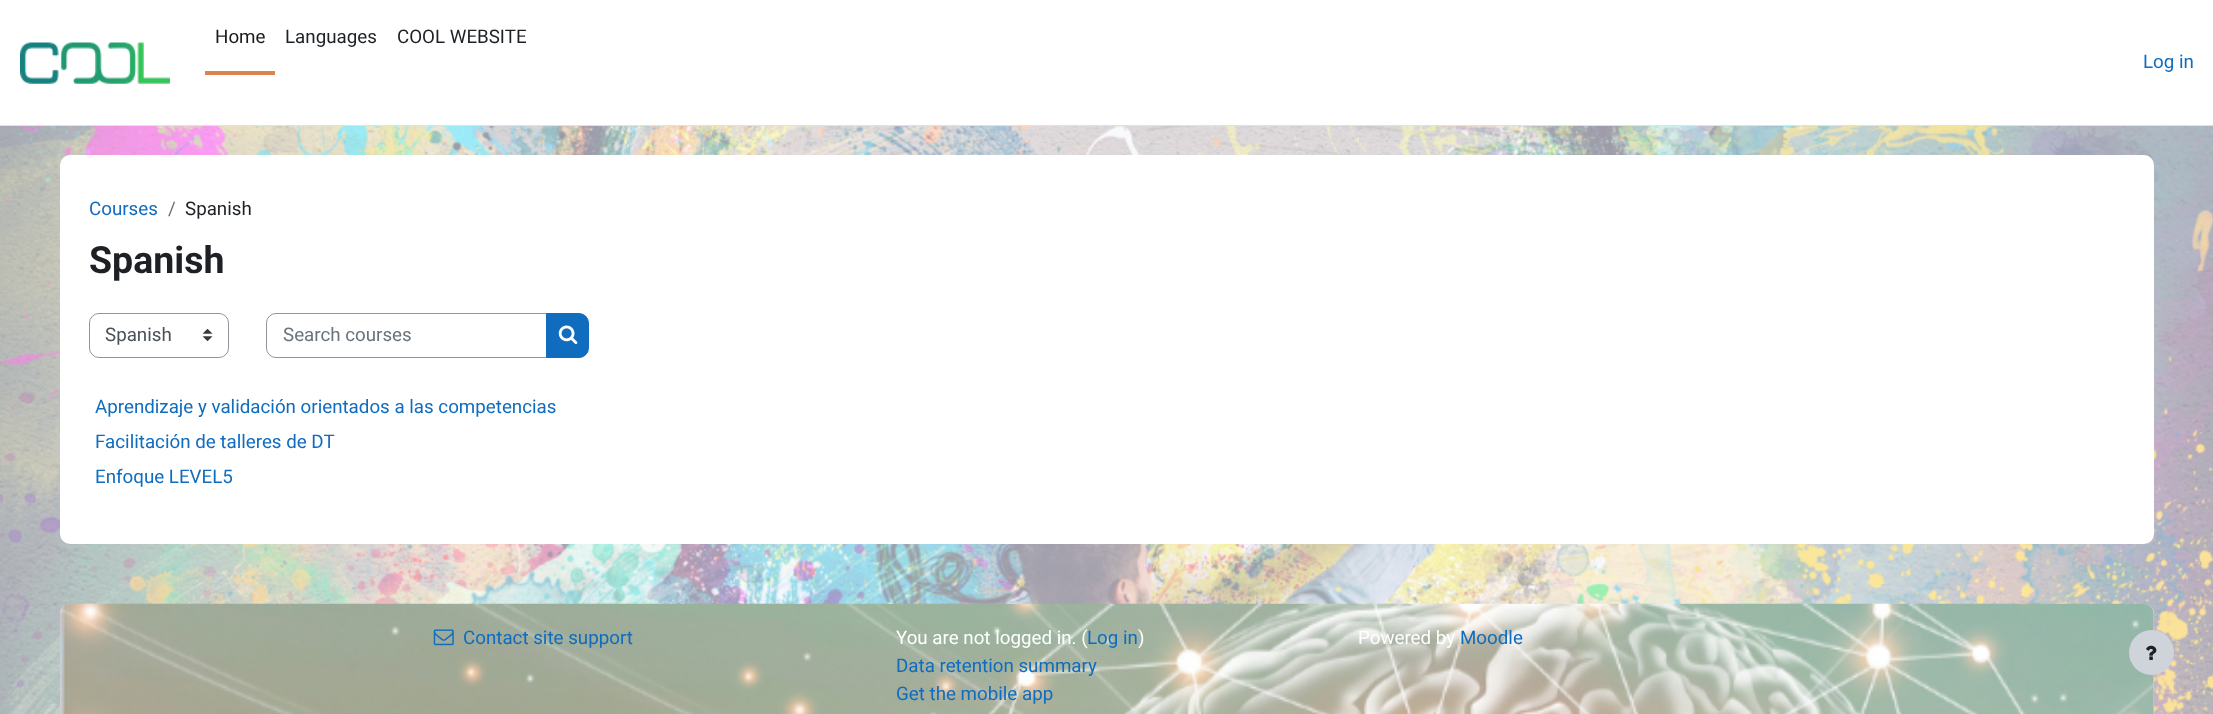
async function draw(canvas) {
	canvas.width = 2213;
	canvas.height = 714;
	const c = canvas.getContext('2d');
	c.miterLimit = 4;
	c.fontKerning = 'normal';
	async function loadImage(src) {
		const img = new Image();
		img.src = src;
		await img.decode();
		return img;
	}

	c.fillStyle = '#fff';
	c.fillRect(0, 0, 2213, 714);
	c.drawImage(await loadImage('img1.png'), 0, 126, 2213, 588);
	c.fillStyle = '#dee2e6';
	c.fillRect(0, 125, 2213, 1);
	c.fillStyle = '#dc844d';
	c.fillRect(205, 71, 70, 4);
	c.font = '18.75px Roboto';
	c.fillStyle = '#1a1a1a';
	c.fillText('Home', 215, 43);
	c.fillStyle = '#1d2125';
	c.fillText('Languages', 285, 43);
	c.fillText('COOL WEBSITE', 397, 43);
	c.drawImage(await loadImage('img2.png'), 20, 42, 150, 42);
	c.fillStyle = '#0f6cbf';
	c.fillText('Log in', 2143, 68);
	c.fillStyle = '#fff';
	c.beginPath();
	c.roundRect(60, 155, 2094, 389, 10);
	c.fill();
	c.fillStyle = '#0f6cbf';
	c.fillText('Courses', 89, 215);
	c.fillStyle = '#6a737b';
	c.fillText('/', 168, 215);
	c.fillStyle = '#1d2125';
	c.fillText('Spanish', 185, 215);
	c.font = 'bold 37.5px Roboto';
	c.fillText('Spanish', 89, 273);
	c.drawImage(await loadImage('img3.png'), 203, 329, 10, 12);
	c.beginPath();
	c.roundRect(89.5, 313.5, 139, 44, 9.5);
	c.strokeStyle = '#8f959e';
	c.stroke();
	c.font = '18.75px Roboto';
	c.fillStyle = '#495057';
	c.fillText('Spanish', 105, 341);
	c.beginPath();
	c.roundRect(266.5, 313.5, 281, 44, [9.5, 0, 0, 9.5]);
	c.stroke();
	c.fillStyle = '#6a737b';
	c.fillText('Search courses', 283, 341);
	c.fillStyle = '#0f6cbf';
	c.beginPath();
	c.roundRect(546.5, 313.5, 42, 44, [0, 9.5, 9.5, 0]);
	c.fill();
	c.strokeStyle = '#0f6cbf';
	c.stroke();
	c.drawImage(await loadImage('img4.png'), 558, 325, 20, 20);
	for (const [text, x, y] of [
		['Aprendizaje y validación orientados a las competencias', 95, 413],
		['Facilitación de talleres de DT', 95, 448],
		['Enfoque LEVEL5', 95, 483],
	]) {
		c.fillText(text, x, y);
	}
	c.fillStyle = '#fff';
	c.beginPath();
	c.moveTo(70, 604);
	c.lineTo(2144, 604);
	c.bezierCurveTo(2149.5, 604, 2154, 608.5, 2154, 614);
	c.lineTo(2154, 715);
	c.lineTo(60, 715);
	c.lineTo(60, 614);
	c.bezierCurveTo(60, 608.5, 64.5, 604, 70, 604);
	c.closePath();
	c.fill();
	c.drawImage(await loadImage('img5.png'), 60, 603, 2094, 111);
	c.drawImage(await loadImage('img6.png'), 433, 629, 21, 17);
	c.fillStyle = '#0f6cbf';
	c.fillText('Contact site support', 463, 644);
	c.fillStyle = '#fff';
	c.fillText('You are not logged in. (', 896, 644);
	c.fillStyle = '#0f6cbf';
	c.fillText('Log in', 1087, 644);
	c.fillStyle = '#fff';
	c.fillText(')', 1138, 644);
	c.fillStyle = '#0f6cbf';
	c.fillText('Data retention summary', 896, 672);
	c.fillText('Get the mobile app', 896, 700);
	c.fillStyle = '#fff';
	c.fillText('Powered by', 1358, 644);
	c.fillStyle = '#0f6cbf';
	c.fillText('Moodle', 1460, 644);
	c.fillStyle = '#ced4da';
	c.beginPath();
	c.arc(2151.5, 652.5, 22.5, 0, 2 * Math.PI);
	c.fill();
	c.drawImage(await loadImage('img7.png'), 2146, 645, 11, 15);
}

draw(document.querySelector('canvas'));
